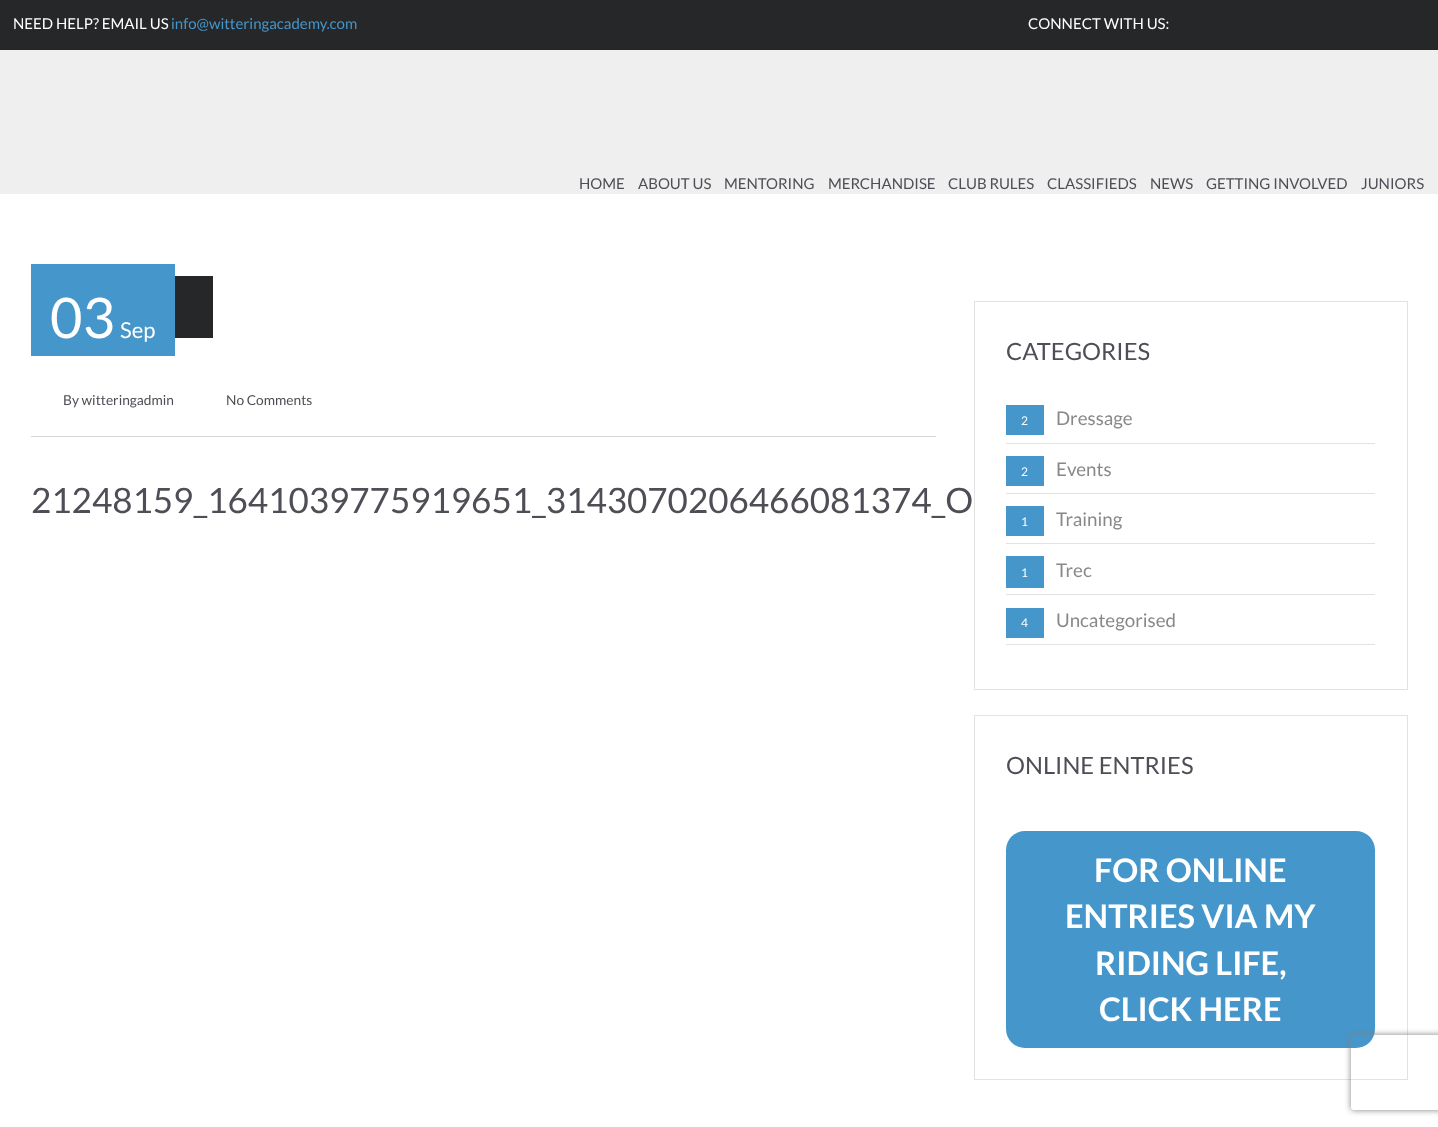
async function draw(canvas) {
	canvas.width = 1438;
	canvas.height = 1127;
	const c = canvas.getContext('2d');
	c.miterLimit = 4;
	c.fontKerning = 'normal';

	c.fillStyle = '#fff';
	c.fillRect(0, 0, 1438, 1127);
	c.fillStyle = '#252729';
	c.fillRect(0, 0, 1438, 50);
	c.font = '15px Lato';
	c.fillStyle = '#fff';
	c.fillText('NEED HELP? EMAIL US', 13, 29);
	c.fillStyle = '#4596ca';
	c.fillText('info@witteringacademy.com', 171, 29);
	c.fillStyle = '#fff';
	c.fillText('CONNECT WITH US:', 1028, 29);
	c.fillStyle = '#efeff0';
	c.fillRect(0, 50, 1438, 144);
	c.fillStyle = '#4f4e56';
	for (const [text, x, y] of [
		['HOME', 579, 189],
		['ABOUT US', 638, 189],
		['MENTORING', 724, 189],
		['MERCHANDISE', 828, 189],
		['CLUB RULES', 948, 189],
		['CLASSIFIEDS', 1047, 189],
		['NEWS', 1150, 189],
		['GETTING INVOLVED', 1206, 189],
		['JUNIORS', 1361, 189],
	]) {
		c.fillText(text, x, y);
	}
	c.fillStyle = '#4596ca';
	c.fillRect(31, 264, 144, 92);
	c.font = '56px Lato';
	c.fillStyle = '#fff';
	c.fillText('03', 50, 338);
	c.font = '22px Lato';
	c.fillText('Sep', 120, 338);
	c.fillStyle = '#252729';
	c.fillRect(175, 276, 38, 62);
	c.fillStyle = '#d7d7d7';
	c.fillRect(31, 436, 905, 1);
	c.font = '13.75px Lato';
	c.fillStyle = '#4f4e56';
	c.fillText('By witteringadmin', 63, 405);
	c.fillText('No Comments', 226, 405);
	c.font = '35px Lato';
	c.fillText('21248159_1641039775919651_3143070206466081374_O', 31, 513);
	c.strokeStyle = '#e2e2e2';
	c.strokeRect(974.5, 301.5, 433, 388);
	c.font = '23.75px Lato';
	c.fillText('CATEGORIES', 1006, 360);
	c.fillStyle = '#e2e2e2';
	c.fillRect(1006, 443, 369, 1);
	c.fillStyle = '#4596ca';
	c.fillRect(1006, 405, 38, 30);
	c.font = '12px Lato';
	c.fillStyle = '#fff';
	c.fillText('2', 1021, 425);
	c.font = '18.75px Lato';
	c.fillStyle = '#888';
	c.fillText('Dressage', 1056, 425);
	c.fillStyle = '#e2e2e2';
	c.fillRect(1006, 493, 369, 1);
	c.fillStyle = '#4596ca';
	c.fillRect(1006, 456, 38, 30);
	c.font = '12px Lato';
	c.fillStyle = '#fff';
	c.fillText('2', 1021, 476);
	c.font = '18.75px Lato';
	c.fillStyle = '#888';
	c.fillText('Events', 1056, 476);
	c.fillStyle = '#e2e2e2';
	c.fillRect(1006, 543, 369, 1);
	c.fillStyle = '#4596ca';
	c.fillRect(1006, 506, 38, 30);
	c.font = '12px Lato';
	c.fillStyle = '#fff';
	c.fillText('1', 1021, 526);
	c.font = '18.75px Lato';
	c.fillStyle = '#888';
	c.fillText('Training', 1056, 526);
	c.fillStyle = '#e2e2e2';
	c.fillRect(1006, 594, 369, 1);
	c.fillStyle = '#4596ca';
	c.fillRect(1006, 556, 38, 32);
	c.font = '12px Lato';
	c.fillStyle = '#fff';
	c.fillText('1', 1021, 577);
	c.font = '18.75px Lato';
	c.fillStyle = '#888';
	c.fillText('Trec', 1056, 577);
	c.fillStyle = '#e2e2e2';
	c.fillRect(1006, 644, 369, 1);
	c.fillStyle = '#4596ca';
	c.fillRect(1006, 608, 38, 30);
	c.font = '12px Lato';
	c.fillStyle = '#fff';
	c.fillText('4', 1021, 627);
	c.font = '18.75px Lato';
	c.fillStyle = '#888';
	c.fillText('Uncategorised', 1056, 627);
	c.strokeRect(974.5, 715.5, 433, 364);
	c.font = '23.75px Lato';
	c.fillStyle = '#4f4e56';
	c.fillText('ONLINE ENTRIES', 1006, 774);
	c.fillStyle = '#4596ca';
	c.beginPath();
	c.roundRect(1006, 831, 369, 217, 19);
	c.fill();
	c.font = 'bold 32.5px Lato';
	c.fillStyle = '#fff';
	for (const [text, x, y] of [
		['FOR ONLINE', 1094, 882],
		['ENTRIES VIA MY', 1065, 928],
		['RIDING LIFE,', 1095, 975],
		['CLICK HERE', 1099, 1021],
	]) {
		c.fillText(text, x, y);
	}
	c.save();
	c.beginPath();
	c.moveTo(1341, 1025);
	c.lineTo(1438, 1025);
	c.lineTo(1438, 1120);
	c.lineTo(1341, 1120);
	c.closePath();
	c.moveTo(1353.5, 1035);
	c.lineTo(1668.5, 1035);
	c.bezierCurveTo(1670, 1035, 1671, 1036, 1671, 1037.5);
	c.lineTo(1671, 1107.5);
	c.bezierCurveTo(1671, 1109, 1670, 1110, 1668.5, 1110);
	c.lineTo(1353.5, 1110);
	c.bezierCurveTo(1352, 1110, 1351, 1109, 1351, 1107.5);
	c.lineTo(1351, 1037.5);
	c.bezierCurveTo(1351, 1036, 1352, 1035, 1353.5, 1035);
	c.closePath();
	c.clip('evenodd');
	c.fillStyle = '#808080';
	c.filter = 'blur(3px)';
	c.beginPath();
	c.roundRect(1351, 1035, 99, 75, 2.5);
	c.fill();
	c.filter = 'none';
	c.restore();
}

draw(document.querySelector('canvas'));
